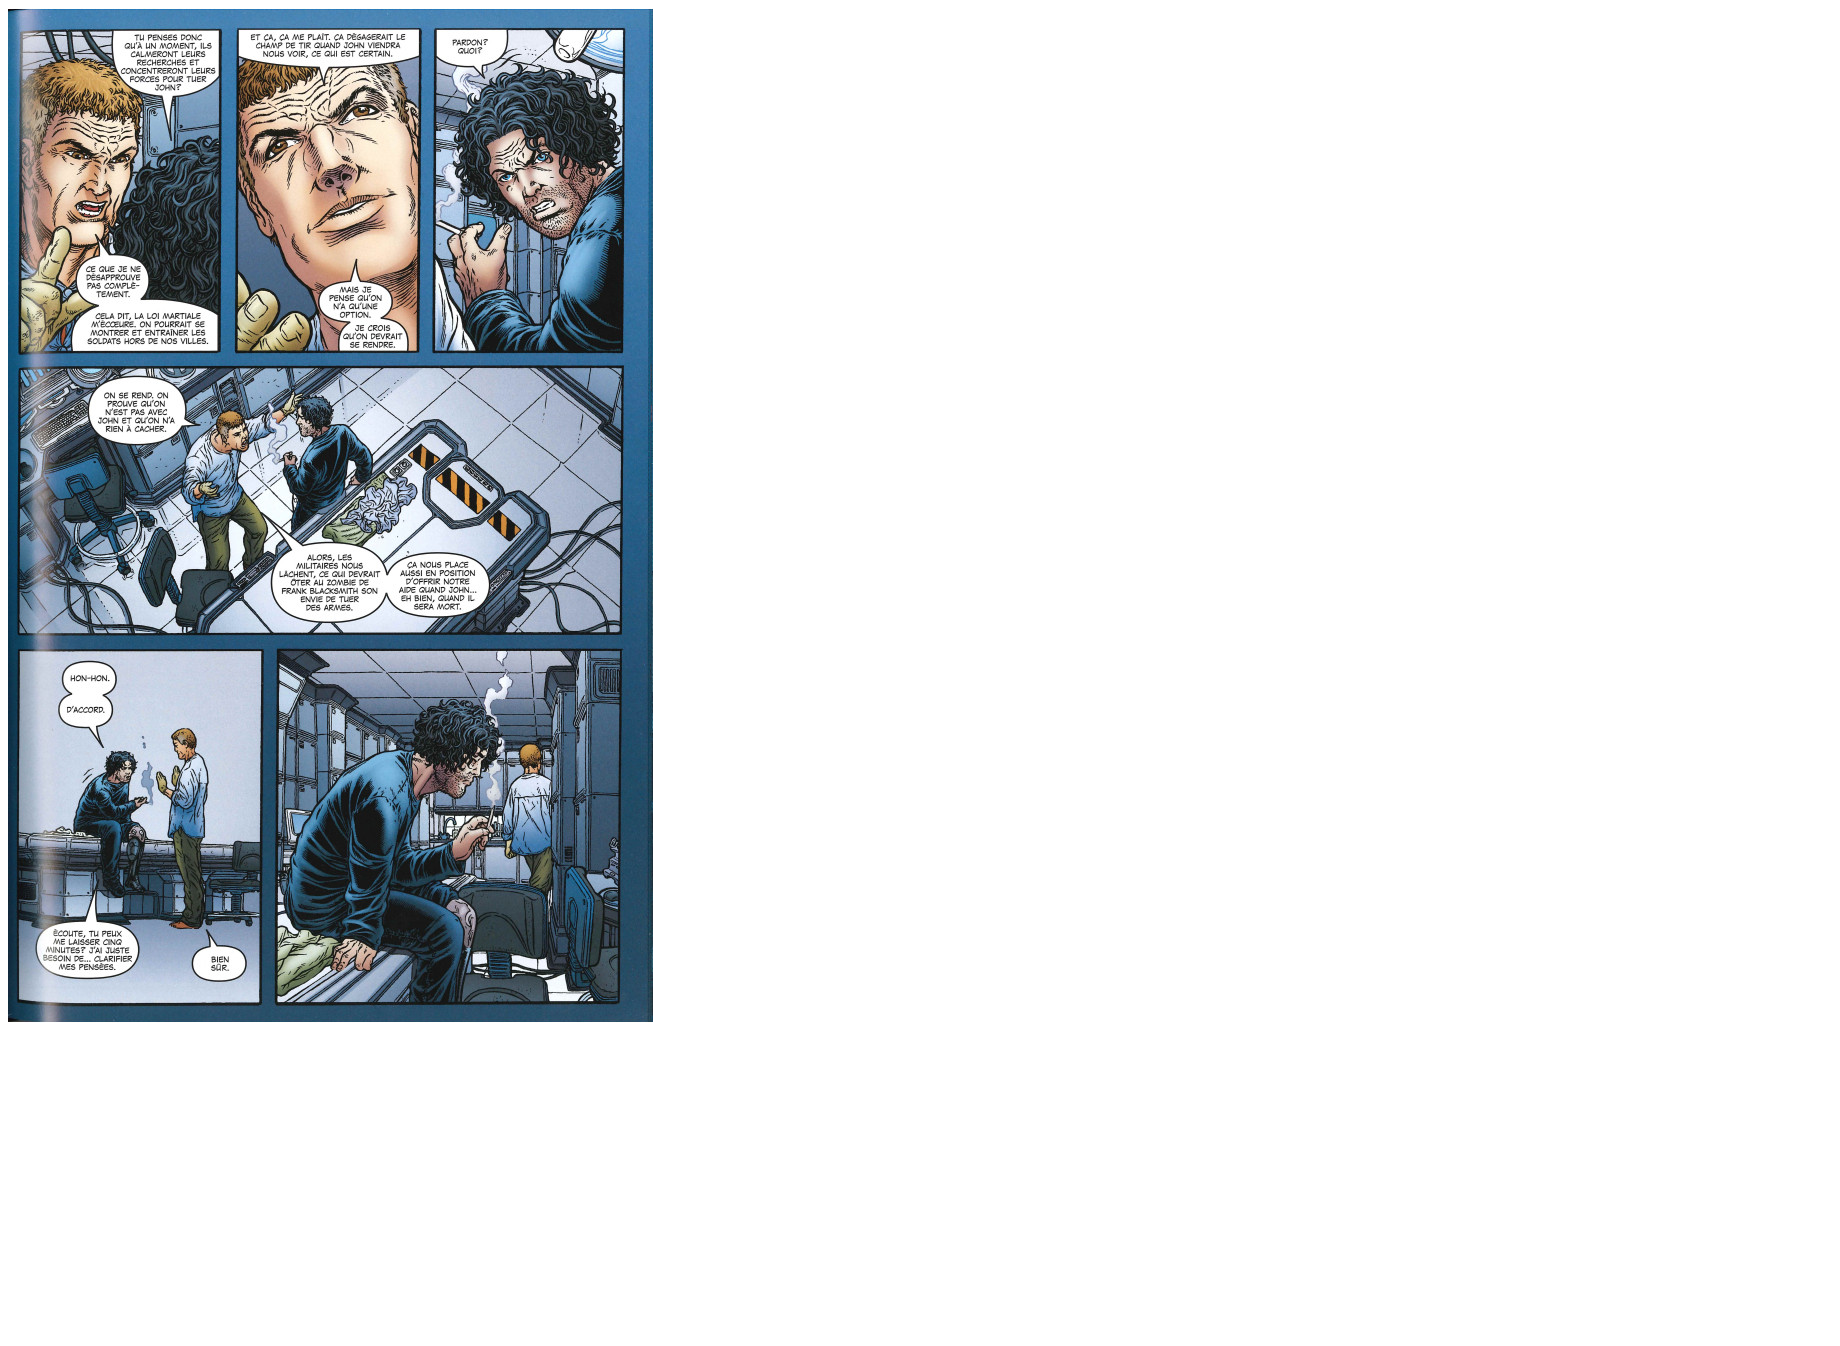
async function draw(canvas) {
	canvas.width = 1840;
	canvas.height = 1346;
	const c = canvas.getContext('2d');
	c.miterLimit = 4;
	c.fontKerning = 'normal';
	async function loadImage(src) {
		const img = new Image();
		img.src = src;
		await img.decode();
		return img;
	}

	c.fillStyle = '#fff';
	c.fillRect(0, 0, 1840, 1346);
	c.drawImage(await loadImage('img1.png'), 8, 8, 645, 1015);
}

draw(document.querySelector('canvas'));
